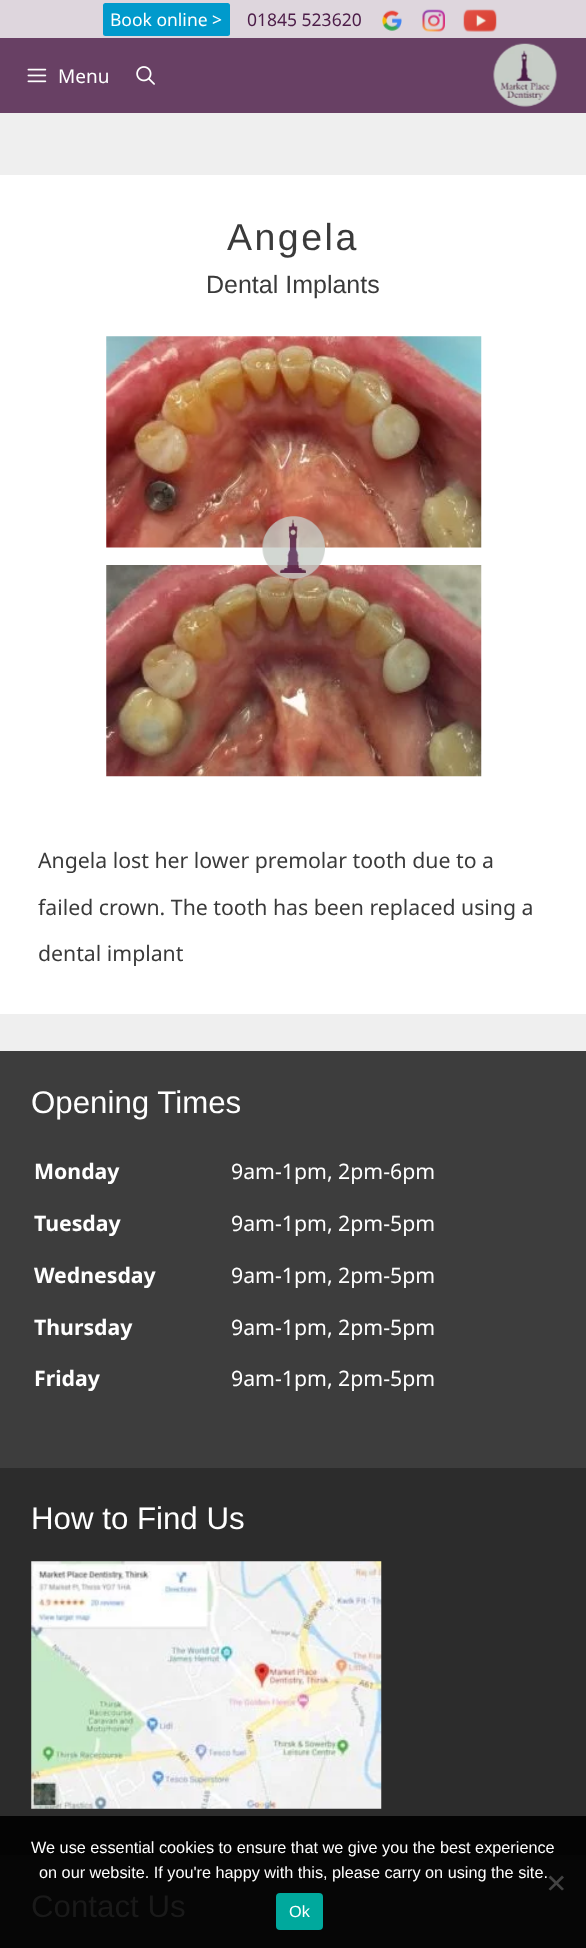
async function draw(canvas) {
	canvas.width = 586;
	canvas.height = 1948;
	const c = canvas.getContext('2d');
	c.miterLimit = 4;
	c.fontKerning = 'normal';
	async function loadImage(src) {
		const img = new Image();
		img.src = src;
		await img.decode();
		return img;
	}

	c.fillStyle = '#efefef';
	c.fillRect(0, 0, 586, 1948);
	c.fillStyle = '#ded6dd';
	c.fillRect(0, 0, 586, 38);
	c.fillStyle = '#009acc';
	c.beginPath();
	c.roundRect(103, 3, 127, 33, 2.5);
	c.fill();
	c.font = '17.5px Noto Sans';
	c.fillStyle = '#fff';
	c.fillText('Book online >', 110, 26);
	c.fillStyle = '#4c1c48';
	c.fillText('01845 523620', 247, 26);
	c.drawImage(await loadImage('img1.png'), 382, 10, 20, 21);
	c.drawImage(await loadImage('img2.png'), 422, 9, 23, 23);
	c.drawImage(await loadImage('img3.png'), 463, 9, 34, 23);
	c.fillStyle = '#684064';
	c.fillRect(0, 38, 586, 75);
	c.drawImage(await loadImage('img4.png'), 27, 68, 20, 15);
	c.font = '19px Noto Sans';
	c.fillStyle = '#fff';
	c.fillText('Menu', 58, 83);
	c.drawImage(await loadImage('img5.png'), 136, 66, 19, 19);
	c.drawImage(await loadImage('img6.png'), 493, 43, 64, 64);
	c.fillRect(0, 175, 586, 839);
	c.letterSpacing = '2.5px';
	c.font = '37.5px Liberation Sans';
	c.fillStyle = '#3a3a3a';
	c.fillText('Angela', 227, 250);
	c.letterSpacing = '0px';
	c.font = '25px Liberation Sans';
	c.fillText('Dental Implants', 206, 293);
	c.drawImage(await loadImage('img7.png'), 106, 336, 376, 212);
	c.drawImage(await loadImage('img9.png'), 106, 565, 376, 212);
	c.drawImage(await loadImage('img8.png'), 262, 516, 63, 63);
	c.font = '21.25px Noto Sans';
	for (const [text, x, y] of [
		['Angela lost her lower premolar tooth due to a', 38, 868],
		['failed crown. The tooth has been replaced using a', 38, 915],
		['dental implant', 38, 961],
	]) {
		c.fillText(text, x, y);
	}
	c.fillStyle = '#3d3d3d';
	c.fillRect(0, 1051, 586, 417);
	c.font = '31.25px Liberation Sans';
	c.fillStyle = '#fff';
	c.fillText('Opening Times', 31, 1113);
	c.font = 'bold 21.25px Noto Sans';
	c.fillText('Monday', 34, 1179);
	c.font = '21.25px Noto Sans';
	c.fillText('9am-1pm, 2pm-6pm', 231, 1179);
	c.font = 'bold 21.25px Noto Sans';
	c.fillText('Tuesday', 34, 1231);
	c.font = '21.25px Noto Sans';
	c.fillText('9am-1pm, 2pm-5pm', 231, 1231);
	c.font = 'bold 21.25px Noto Sans';
	c.fillText('Wednesday', 34, 1283);
	c.font = '21.25px Noto Sans';
	c.fillText('9am-1pm, 2pm-5pm', 231, 1283);
	c.font = 'bold 21.25px Noto Sans';
	c.fillText('Thursday', 34, 1335);
	c.font = '21.25px Noto Sans';
	c.fillText('9am-1pm, 2pm-5pm', 231, 1335);
	c.font = 'bold 21.25px Noto Sans';
	c.fillText('Friday', 34, 1386);
	c.font = '21.25px Noto Sans';
	c.fillText('9am-1pm, 2pm-5pm', 231, 1386);
	c.fillStyle = '#2c2c2c';
	c.fillRect(0, 1468, 586, 348);
	c.fillStyle = '#040404';
	c.fillRect(0, 1816, 586, 39);
	c.font = '31.25px Liberation Sans';
	c.fillStyle = '#fff';
	c.fillText('How to Find Us', 31, 1529);
	c.drawImage(await loadImage('img10.png'), 31, 1561, 351, 248);
	c.fillStyle = '#060606';
	c.fillRect(0, 1855, 586, 93);
	c.fillStyle = '#191919';
	c.fillText('Contact Us', 31, 1917);
	c.font = '16.25px Liberation Sans';
	c.fillStyle = '#fff';
	c.fillText('We use essential cookies to ensure that we give you the best experience', 31, 1853);
	c.fillText('on our website. If you\'re happy with this, please carry on using the site.', 39, 1878);
	c.fillStyle = '#434343';
	c.beginPath();
	c.moveTo(562, 1875.5);
	c.lineTo(564, 1877.5);
	c.lineTo(550.5, 1890.5);
	c.lineTo(548.5, 1889);
	c.closePath();
	c.fill();
	c.beginPath();
	c.moveTo(548.5, 1877.5);
	c.lineTo(550.5, 1875.5);
	c.lineTo(564, 1889);
	c.lineTo(562, 1890.5);
	c.closePath();
	c.fill();
	c.fillStyle = '#00a99d';
	c.beginPath();
	c.roundRect(276, 1893, 47, 37, 4);
	c.fill();
	c.fillStyle = '#fff';
	c.fillText('Ok', 289, 1917);
}

draw(document.querySelector('canvas'));
